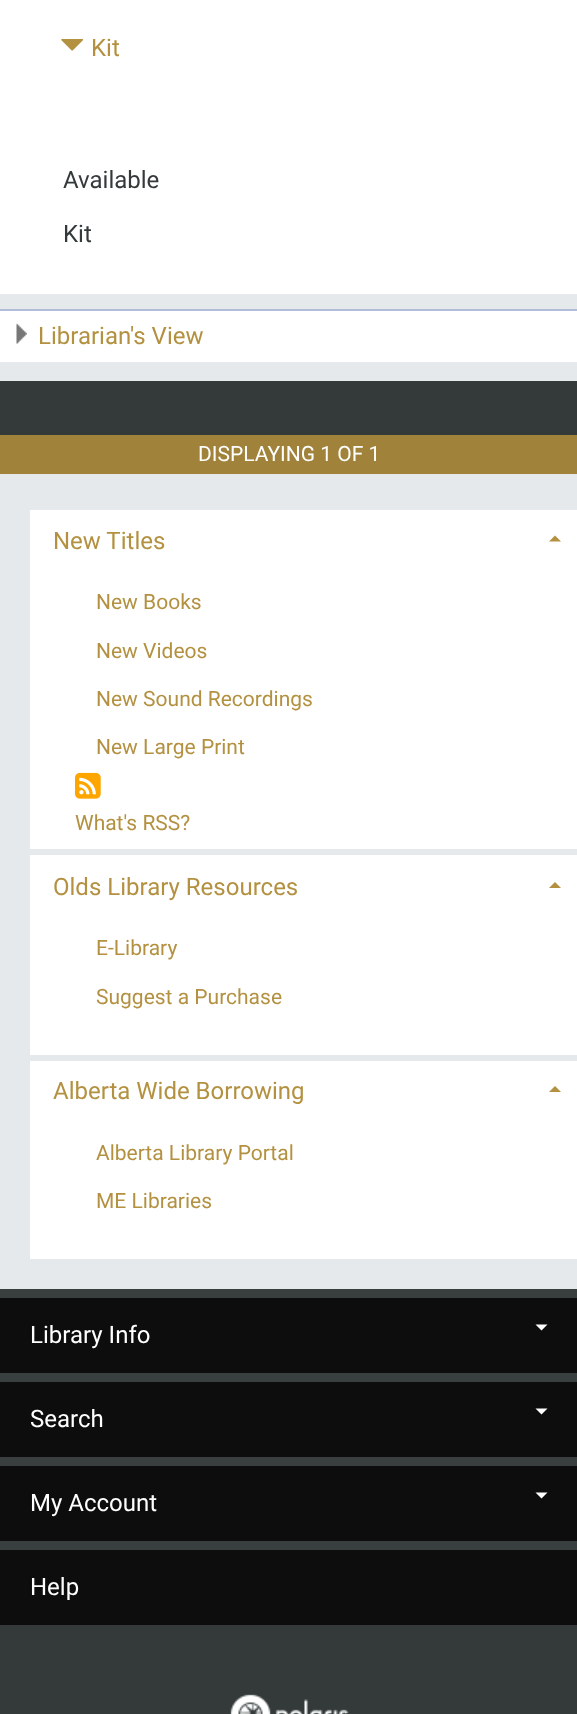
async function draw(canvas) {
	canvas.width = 577;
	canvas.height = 1714;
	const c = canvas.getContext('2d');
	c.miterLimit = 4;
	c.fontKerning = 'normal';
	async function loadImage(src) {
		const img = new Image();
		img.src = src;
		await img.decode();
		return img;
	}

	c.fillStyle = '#e5e9ec';
	c.fillRect(0, 0, 577, 1714);
	c.fillStyle = '#fff';
	c.fillRect(0, 0, 577, 294);
	c.drawImage(await loadImage('img1.png'), 61, 39, 23, 12);
	c.font = '24px Roboto';
	c.fillStyle = '#b39141';
	c.fillText('Kit', 91, 56);
	c.fillStyle = '#343a3a';
	c.fillText('Available', 63, 188);
	c.fillText('Kit', 63, 242);
	c.fillStyle = '#fff';
	c.fillRect(0, 311, 577, 51);
	c.drawImage(await loadImage('img2.png'), 16, 323, 11, 21);
	c.fillStyle = '#b1bcdb';
	c.fillRect(0, 309, 577, 2);
	c.fillStyle = '#b39141';
	c.fillText('Librarian\'s View', 38, 344);
	c.fillStyle = '#a0823a';
	c.fillRect(0, 435, 577, 39);
	c.fillStyle = '#343a3a';
	c.fillRect(0, 381, 577, 54);
	c.font = '21px Roboto';
	c.fillStyle = '#fff';
	c.fillText('DISPLAYING 1 OF 1', 198, 461);
	c.fillRect(30, 510, 547, 339);
	c.font = '24px Roboto';
	c.fillStyle = '#b39141';
	c.fillText('New Titles', 53, 549);
	c.beginPath();
	c.moveTo(561, 541.5);
	c.lineTo(549, 541.5);
	c.lineTo(555, 535.5);
	c.closePath();
	c.fill();
	c.font = '21px Roboto';
	for (const [text, x, y] of [
		['New Books', 96, 609],
		['New Videos', 96, 658],
		['New Sound Recordings', 96, 706],
		['New Large Print', 96, 754],
	]) {
		c.fillText(text, x, y);
	}
	c.drawImage(await loadImage('img3.png'), 75, 772, 26, 27);
	c.fillText('What\'s RSS?', 75, 830);
	c.fillStyle = '#fff';
	c.fillRect(30, 855, 547, 200);
	c.font = '24px Roboto';
	c.fillStyle = '#b39141';
	c.fillText('Olds Library Resources', 53, 895);
	c.beginPath();
	c.moveTo(561, 888);
	c.lineTo(549, 888);
	c.lineTo(555, 882);
	c.closePath();
	c.fill();
	c.font = '21px Roboto';
	c.fillText('E-Library', 96, 955);
	c.fillText('Suggest a Purchase', 96, 1004);
	c.fillStyle = '#fff';
	c.fillRect(30, 1061, 547, 198);
	c.font = '24px Roboto';
	c.fillStyle = '#b39141';
	c.fillText('Alberta Wide Borrowing', 53, 1099);
	c.beginPath();
	c.moveTo(561, 1092);
	c.lineTo(549, 1092);
	c.lineTo(555, 1086);
	c.closePath();
	c.fill();
	c.font = '21px Roboto';
	c.fillText('Alberta Library Portal', 96, 1160);
	c.fillText('ME Libraries', 96, 1208);
	c.fillStyle = '#393f3f';
	c.fillRect(0, 1289, 577, 261);
	c.fillStyle = '#0d0d0d';
	c.fillRect(0, 1298, 577, 75);
	c.font = '24px Roboto';
	c.fillStyle = '#fff';
	c.fillText('Library Info', 30, 1343);
	c.beginPath();
	c.moveTo(535.5, 1324.5);
	c.lineTo(547.5, 1324.5);
	c.lineTo(541.5, 1330.5);
	c.closePath();
	c.fill();
	c.fillStyle = '#0d0d0d';
	c.fillRect(0, 1382, 577, 75);
	c.fillStyle = '#fff';
	c.fillText('Search', 30, 1427);
	c.beginPath();
	c.moveTo(535.5, 1408.5);
	c.lineTo(547.5, 1408.5);
	c.lineTo(541.5, 1414.5);
	c.closePath();
	c.fill();
	c.fillStyle = '#0d0d0d';
	c.fillRect(0, 1466, 577, 75);
	c.fillStyle = '#fff';
	c.fillText('My Account', 30, 1511);
	c.beginPath();
	c.moveTo(535.5, 1492.5);
	c.lineTo(547.5, 1492.5);
	c.lineTo(541.5, 1498.5);
	c.closePath();
	c.fill();
	c.fillStyle = '#0d0d0d';
	c.fillRect(0, 1550, 577, 75);
	c.fillStyle = '#fff';
	c.fillText('Help', 30, 1595);
	c.fillStyle = '#343a3a';
	c.fillRect(0, 1625, 577, 89);
	c.drawImage(await loadImage('img4.png'), 230, 1694, 119, 20);
}

draw(document.querySelector('canvas'));
